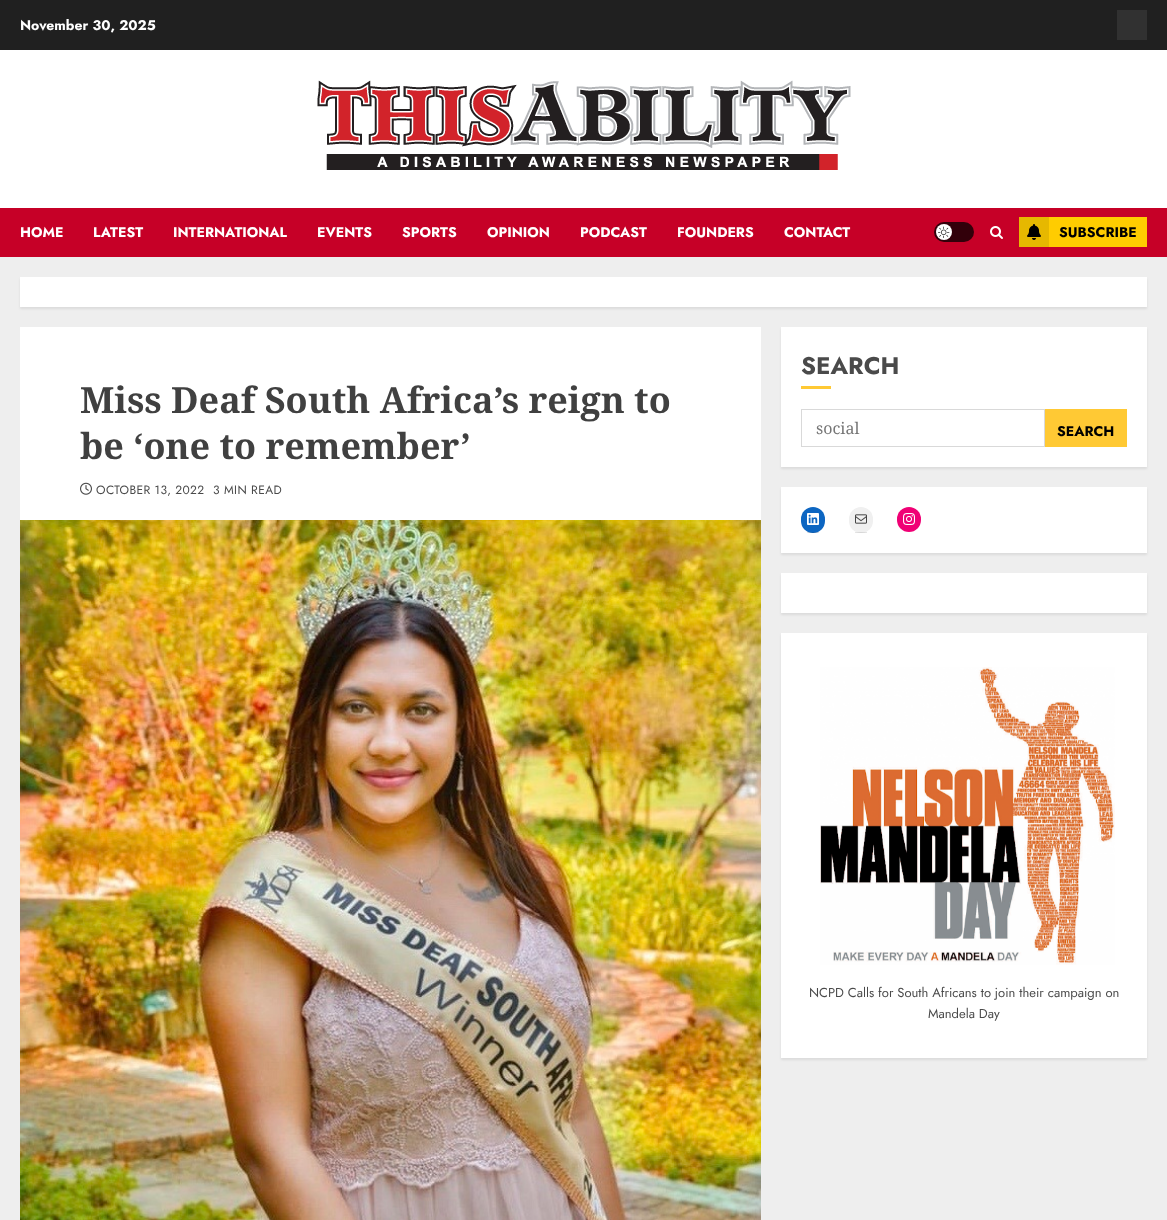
async function draw(canvas) {
	canvas.width = 1167;
	canvas.height = 1220;
	const c = canvas.getContext('2d');
	c.miterLimit = 4;
	c.fontKerning = 'normal';
	async function loadImage(src) {
		const img = new Image();
		img.src = src;
		await img.decode();
		return img;
	}

	c.fillStyle = '#eee';
	c.fillRect(0, 0, 1167, 1220);
	c.fillStyle = '#202020';
	c.fillRect(0, 0, 1167, 50);
	c.font = 'bold 14px Jost';
	c.fillStyle = '#fff';
	c.fillText('November 30, 2025', 20, 30);
	c.fillStyle = '#313131';
	c.fillRect(1117, 10, 30, 30);
	c.fillStyle = '#fff';
	c.fillRect(0, 50, 1167, 158);
	c.drawImage(await loadImage('img1.png'), 317, 80, 534, 90);
	c.fillStyle = '#c60027';
	c.fillRect(0, 208, 1167, 49);
	c.fillStyle = '#fff';
	for (const [text, x, y] of [
		['HOME', 20, 237],
		['LATEST', 93, 237],
		['INTERNATIONAL', 173, 237],
		['EVENTS', 317, 237],
		['SPORTS', 402, 237],
		['OPINION', 487, 237],
		['PODCAST', 580, 237],
		['FOUNDERS', 677, 237],
		['CONTACT', 784, 237],
	]) {
		c.fillText(text, x, y);
	}
	c.fillStyle = '#32000a';
	c.beginPath();
	c.roundRect(934, 222, 40, 20, 10);
	c.fill();
	c.fillStyle = '#fff';
	c.beginPath();
	c.arc(944, 232, 8, 0, 2 * Math.PI);
	c.fill();
	c.drawImage(await loadImage('img2.png'), 938, 226, 12, 12);
	c.drawImage(await loadImage('img3.png'), 990, 226, 13, 13);
	c.fillStyle = '#fc0';
	c.fillRect(1049, 217, 98, 30);
	c.fillStyle = '#e6b800';
	c.fillRect(1019, 217, 30, 30);
	c.drawImage(await loadImage('img4.png'), 1027, 224, 14, 16);
	c.fillStyle = '#000';
	c.fillText('SUBSCRIBE', 1059, 237);
	c.fillStyle = '#00000014';
	c.filter = 'blur(1px)';
	c.beginPath();
	c.rect(20, 279, 1127, 30);
	c.fill();
	c.filter = 'none';
	c.fillStyle = '#fff';
	c.fillRect(20, 277, 1127, 30);
	c.fillRect(20, 327, 741, 193);
	c.font = 'bold 36px Noto Serif';
	c.fillStyle = '#404040';
	c.fillText('Miss Deaf South Africa’s reign to', 80, 413);
	c.fillText('be ‘one to remember’', 80, 459);
	c.drawImage(await loadImage('img5.png'), 80, 482, 12, 13);
	c.letterSpacing = '0.4px';
	c.font = '12px Jost';
	c.fillStyle = '#4a4a4a';
	c.fillText('OCTOBER 13, 2022', 96, 494);
	c.fillText('3 MIN READ', 213, 494);
	c.drawImage(await loadImage('img6.png'), 20, 520, 741, 700);
	c.fillStyle = '#00000014';
	c.filter = 'blur(1px)';
	c.beginPath();
	c.rect(781, 329, 366, 140);
	c.fill();
	c.filter = 'none';
	c.fillStyle = '#fff';
	c.fillRect(781, 327, 366, 140);
	c.letterSpacing = '0px';
	c.font = 'bold 24px Jost';
	c.fillStyle = '#4a4a4a';
	c.fillText('SEARCH', 801, 374);
	c.fillStyle = '#ffc934';
	c.fillRect(801, 386, 30, 3);
	c.strokeStyle = '#d9d9d9';
	c.strokeRect(801.5, 409.5, 243, 37);
	c.font = '16px Noto Serif';
	c.fillStyle = '#757575';
	c.fillText('social', 816, 434);
	c.fillStyle = '#ffc934';
	c.fillRect(1045, 409, 82, 38);
	c.font = 'bold 14px Jost';
	c.fillStyle = '#000';
	c.fillText('SEARCH', 1057, 436);
	c.fillStyle = '#00000014';
	c.filter = 'blur(1px)';
	c.beginPath();
	c.rect(781, 489, 366, 66);
	c.fill();
	c.filter = 'none';
	c.fillStyle = '#fff';
	c.fillRect(781, 487, 366, 66);
	c.fillStyle = '#0d66c2';
	c.beginPath();
	c.roundRect(801, 507, 24, 26, 12);
	c.fill();
	c.fillStyle = '#0000001a';
	c.fillRect(807, 532, 12, 1);
	c.drawImage(await loadImage('img7.png'), 807, 513, 12, 12);
	c.fillStyle = '#f0f0f0';
	c.beginPath();
	c.roundRect(849, 507, 24, 26, 12);
	c.fill();
	c.fillStyle = '#0000001a';
	c.fillRect(855, 532, 12, 1);
	c.drawImage(await loadImage('img8.png'), 855, 514, 12, 10);
	c.fillStyle = '#f00075';
	c.beginPath();
	c.roundRect(897, 507, 24, 25, 12);
	c.fill();
	c.drawImage(await loadImage('img9.png'), 903, 513, 12, 12);
	c.fillStyle = '#00000014';
	c.filter = 'blur(1px)';
	c.beginPath();
	c.rect(781, 575, 366, 40);
	c.fill();
	c.filter = 'none';
	c.fillStyle = '#fff';
	c.fillRect(781, 573, 366, 40);
	c.fillStyle = '#00000014';
	c.filter = 'blur(1px)';
	c.beginPath();
	c.rect(781, 635, 366, 425);
	c.fill();
	c.filter = 'none';
	c.fillStyle = '#fff';
	c.fillRect(781, 633, 366, 425);
	c.drawImage(await loadImage('img10.png'), 820, 667, 295, 298);
	c.font = '13px Jost';
	c.fillStyle = '#4a4a4a';
	c.fillText('NCPD Calls for South Africans to join their campaign on', 809, 997);
	c.fillText('Mandela Day', 928, 1018);
}

draw(document.querySelector('canvas'));
